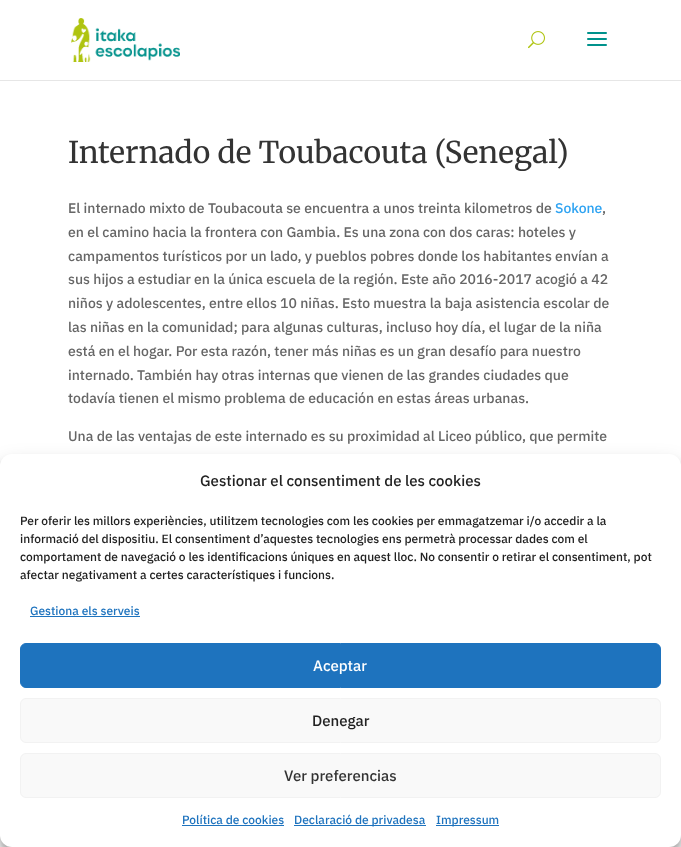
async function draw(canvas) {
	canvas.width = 681;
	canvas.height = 847;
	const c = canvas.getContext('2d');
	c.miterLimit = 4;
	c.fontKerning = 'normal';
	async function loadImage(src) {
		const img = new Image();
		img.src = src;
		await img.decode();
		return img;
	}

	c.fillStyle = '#fff';
	c.fillRect(0, 0, 681, 847);
	c.fillStyle = '#e6e6e6';
	c.fillRect(0, 80, 681, 1);
	c.drawImage(await loadImage('img1.png'), 71, 18, 109, 44);
	c.drawImage(await loadImage('img2.png'), 528, 31, 17, 18);
	c.drawImage(await loadImage('img3.png'), 587, 32, 20, 14);
	c.font = '30px Merriweather';
	c.fillStyle = '#333';
	c.fillText('Internado de Toubacouta (Senegal)', 68, 163);
	c.font = '500 14px IBM Plex Sans';
	c.fillStyle = '#666';
	c.fillText('El internado mixto de Toubacouta se encuentra a unos treinta kilometros de', 68, 213);
	c.fillStyle = '#2ea3f2';
	c.fillText('Sokone', 555, 213);
	c.fillStyle = '#666';
	for (const [text, x, y] of [
		[',', 602, 213],
		['en el camino hacia la frontera con Gambia. Es una zona con dos caras: hoteles y', 68, 237],
		['campamentos turísticos por un lado, y pueblos pobres donde los habitantes envían a', 68, 261],
		['sus hijos a estudiar en la única escuela de la región. Este año 2016-2017 acogió a 42', 68, 284],
		['niños y adolescentes, entre ellos 10 niñas. Esto muestra la baja asistencia escolar de', 68, 308],
		['las niñas en la comunidad; para algunas culturas, incluso hoy día, el lugar de la niña', 68, 332],
		['está en el hogar. Por esta razón, tener más niñas es un gran desafío para nuestro', 68, 356],
		['internado. También hay otras internas que vienen de las grandes ciudades que', 68, 380],
		['todavía tienen el mismo problema de educación en estas áreas urbanas.', 68, 403],
		['Una de las ventajas de este internado es su proximidad al Liceo público, que permite', 68, 441],
	]) {
		c.fillText(text, x, y);
	}
	c.fillStyle = '#0000003b';
	c.filter = 'blur(3px)';
	c.beginPath();
	c.roundRect(0, 460, 681, 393, 12);
	c.fill();
	c.filter = 'none';
	c.fillStyle = '#00000030';
	c.filter = 'blur(10px)';
	c.beginPath();
	c.roundRect(0, 464, 681, 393, 12);
	c.fill();
	c.filter = 'none';
	c.fillStyle = '#fff';
	c.beginPath();
	c.roundRect(0, 454, 681, 393, 12);
	c.fill();
	c.font = '500 15px IBM Plex Sans';
	c.fillStyle = '#222';
	c.fillText('Gestionar el consentiment de les cookies', 200, 486);
	c.font = '500 12px IBM Plex Sans';
	for (const [text, x, y] of [
		['Per oferir les millors experiències, utilitzem tecnologies com les cookies per emmagatzemar i/o accedir a la', 20, 525],
		['informació del dispositiu. El consentiment d’aquestes tecnologies ens permetrà processar dades com el', 20, 543],
		['comportament de navegació o les identificacions úniques en aquest lloc. No consentir o retirar el consentiment, pot', 20, 561],
		['afectar negativament a certes característiques i funcions.', 20, 579],
	]) {
		c.fillText(text, x, y);
	}
	c.fillStyle = '#1e73be';
	c.fillText('Gestiona els serveis', 30, 615);
	c.fillRect(30, 616, 110, 1);
	c.beginPath();
	c.roundRect(20.5, 643.5, 640, 44, 5.5);
	c.fill();
	c.strokeStyle = '#1e73be';
	c.stroke();
	c.font = '500 15px IBM Plex Sans';
	c.fillStyle = '#fff';
	c.fillText('Aceptar', 313, 671);
	c.fillStyle = '#f9f9f9';
	c.beginPath();
	c.roundRect(20.5, 698.5, 640, 44, 5.5);
	c.fill();
	c.strokeStyle = '#f2f2f2';
	c.stroke();
	c.fillStyle = '#222';
	c.fillText('Denegar', 312, 726);
	c.fillStyle = '#f9f9f9';
	c.beginPath();
	c.roundRect(20.5, 753.5, 640, 44, 5.5);
	c.fill();
	c.stroke();
	c.fillStyle = '#333';
	c.fillText('Ver preferencias', 284, 781);
	c.font = '500 12px IBM Plex Sans';
	c.fillStyle = '#1e73be';
	c.fillText('Política de cookies', 182, 824);
	c.fillRect(182, 825, 102, 1);
	c.fillRect(294, 825, 132, 1);
	c.fillText('Declaració de privadesa', 294, 824);
	c.fillRect(436, 825, 63, 1);
	c.fillText('Impressum', 436, 824);
}

draw(document.querySelector('canvas'));
